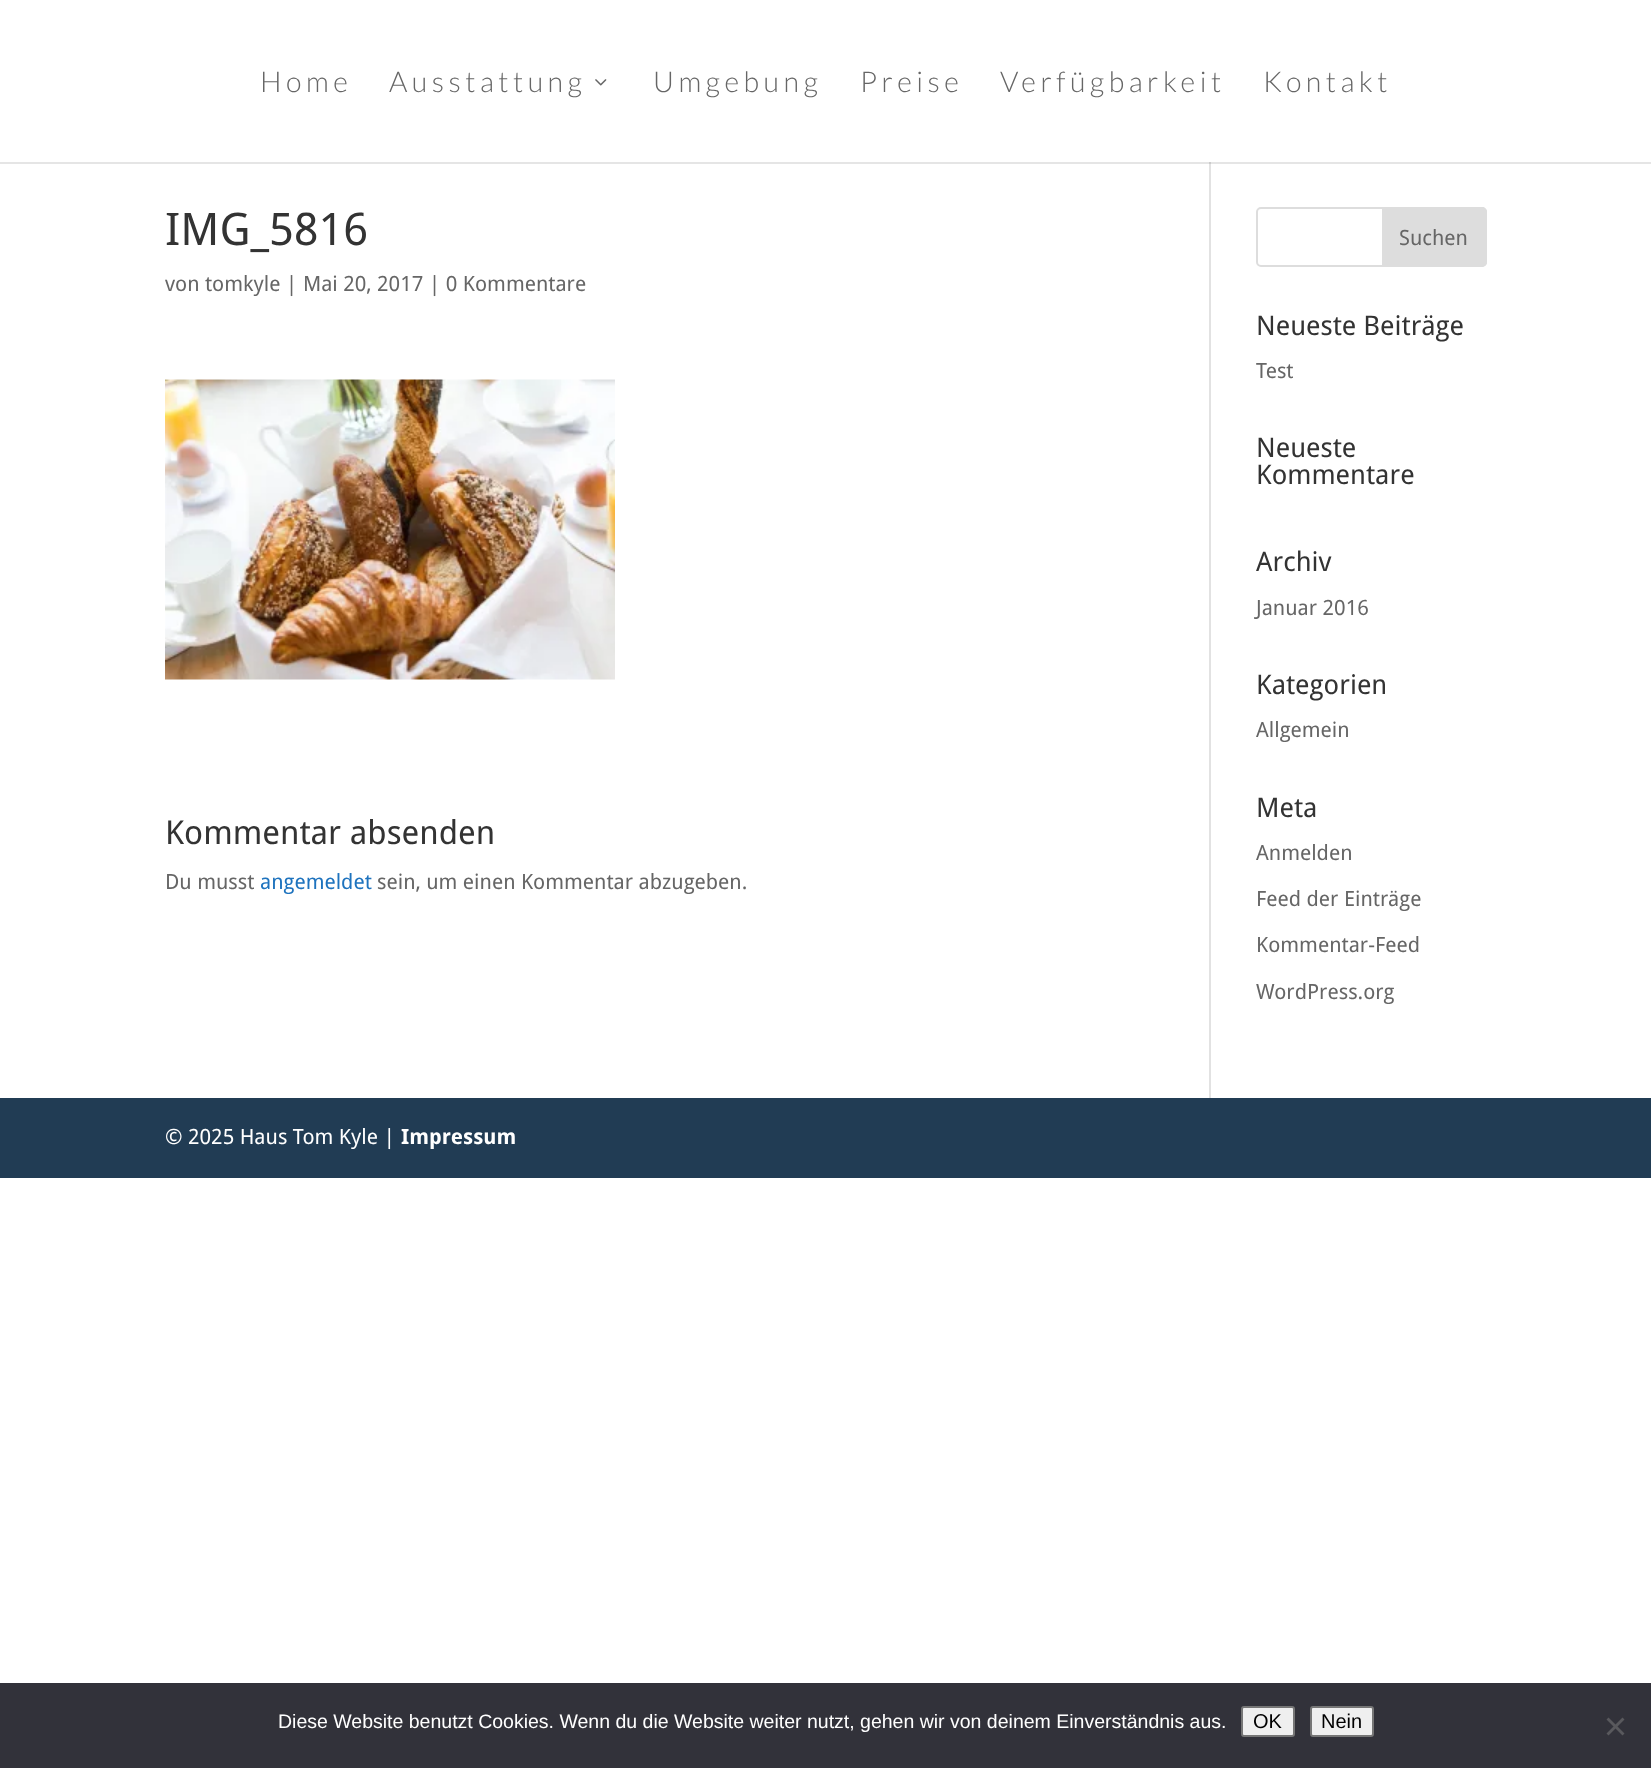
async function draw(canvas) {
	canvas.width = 1651;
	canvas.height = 1768;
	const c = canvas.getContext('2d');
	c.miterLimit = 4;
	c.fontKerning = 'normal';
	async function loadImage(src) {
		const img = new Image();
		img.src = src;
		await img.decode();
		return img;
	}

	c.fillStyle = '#fff';
	c.fillRect(0, 0, 1651, 1768);
	c.fillStyle = '#e2e2e2';
	c.fillRect(1209, 162, 2, 936);
	c.fillStyle = '#0000001a';
	c.beginPath();
	c.moveTo(0, 162);
	c.lineTo(0, 164);
	c.lineTo(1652, 164);
	c.lineTo(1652, 2);
	c.lineTo(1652, 162);
	c.closePath();
	c.fill();
	c.letterSpacing = '4.5px';
	c.font = '300 28.5px Lato';
	c.fillStyle = '#666';
	c.fillText('Home', 260, 92);
	c.fillText('Ausstattung', 389, 92);
	c.drawImage(await loadImage('img1.png'), 595, 79, 12, 7);
	for (const [text, x, y] of [
		['Umgebung', 653, 92],
		['Preise', 860, 92],
		['Verfügbarkeit', 1000, 92],
		['Kontakt', 1263, 92],
	]) {
		c.fillText(text, x, y);
	}
	c.letterSpacing = '0px';
	c.font = '45px Droid Sans';
	c.fillStyle = '#333';
	c.fillText('IMG_5816', 165, 245);
	c.font = '21px Droid Sans';
	c.fillStyle = '#666';
	c.fillText('von tomkyle | Mai 20, 2017 | 0 Kommentare', 165, 291);
	c.drawImage(await loadImage('img2.png'), 165, 379, 450, 301);
	c.font = '33px Droid Sans';
	c.fillStyle = '#333';
	c.fillText('Kommentar absenden', 165, 844);
	c.font = '21px Droid Sans';
	c.fillStyle = '#666';
	c.fillText('Du musst', 165, 889);
	c.fillStyle = '#1e73be';
	c.fillText('angemeldet', 260, 889);
	c.fillStyle = '#666';
	c.fillText('sein, um einen Kommentar abzugeben.', 377, 889);
	c.beginPath();
	c.roundRect(1257, 208, 229, 58, 4);
	c.strokeStyle = '#ddd';
	c.lineWidth = 2;
	c.stroke();
	c.fillStyle = '#ddd';
	c.beginPath();
	c.roundRect(1383, 208, 103, 58, [0, 4, 4, 0]);
	c.fill();
	c.stroke();
	c.fillStyle = '#666';
	c.fillText('Suchen', 1399, 245);
	c.font = '27px Droid Sans';
	c.fillStyle = '#333';
	c.fillText('Neueste Beiträge', 1256, 335);
	c.font = '21px Droid Sans';
	c.fillStyle = '#666';
	c.fillText('Test', 1256, 378);
	c.font = '27px Droid Sans';
	c.fillStyle = '#333';
	for (const [text, x, y] of [
		['Neueste', 1256, 457],
		['Kommentare', 1256, 484],
		['Archiv', 1256, 571],
	]) {
		c.fillText(text, x, y);
	}
	c.font = '21px Droid Sans';
	c.fillStyle = '#666';
	c.fillText('Januar 2016', 1256, 615);
	c.font = '27px Droid Sans';
	c.fillStyle = '#333';
	c.fillText('Kategorien', 1256, 694);
	c.font = '21px Droid Sans';
	c.fillStyle = '#666';
	c.fillText('Allgemein', 1256, 737);
	c.font = '27px Droid Sans';
	c.fillStyle = '#333';
	c.fillText('Meta', 1256, 817);
	c.font = '21px Droid Sans';
	c.fillStyle = '#666';
	for (const [text, x, y] of [
		['Anmelden', 1256, 860],
		['Feed der Einträge', 1256, 906],
		['Kommentar-Feed', 1256, 952],
		['WordPress.org', 1256, 999],
	]) {
		c.fillText(text, x, y);
	}
	c.fillStyle = '#213c54';
	c.fillRect(0, 1098, 1651, 80);
	c.fillStyle = '#fff';
	c.fillText('© 2025 Haus Tom Kyle |', 165, 1144);
	c.font = 'bold 21px Droid Sans';
	c.fillText('Impressum', 401, 1144);
	c.fillStyle = '#32323a';
	c.fillRect(0, 1683, 1651, 85);
	c.font = '19.5px Liberation Sans';
	c.fillStyle = '#fff';
	c.fillText('Diese Website benutzt Cookies. Wenn du die Website weiter nutzt, gehen wir von deinem Einverständnis aus.', 278, 1728);
	c.fillStyle = '#efefef';
	c.beginPath();
	c.roundRect(1242, 1707, 52, 29, 2);
	c.fill();
	c.strokeStyle = '#767676';
	c.stroke();
	c.font = '20px Liberation Sans';
	c.fillStyle = '#000';
	c.fillText('OK', 1253, 1728);
	c.fillStyle = '#efefef';
	c.beginPath();
	c.roundRect(1311, 1707, 62, 29, 2);
	c.fill();
	c.stroke();
	c.fillStyle = '#000';
	c.fillText('Nein', 1321, 1728);
	c.fillStyle = '#59595d';
	c.beginPath();
	c.moveTo(1622.5, 1717.5);
	c.lineTo(1624.5, 1719.5);
	c.lineTo(1608.5, 1735.5);
	c.lineTo(1606.5, 1733.5);
	c.closePath();
	c.fill();
	c.beginPath();
	c.moveTo(1606.5, 1719.5);
	c.lineTo(1608.5, 1717.5);
	c.lineTo(1624.5, 1733.5);
	c.lineTo(1622.5, 1735.5);
	c.closePath();
	c.fill();
}

draw(document.querySelector('canvas'));
